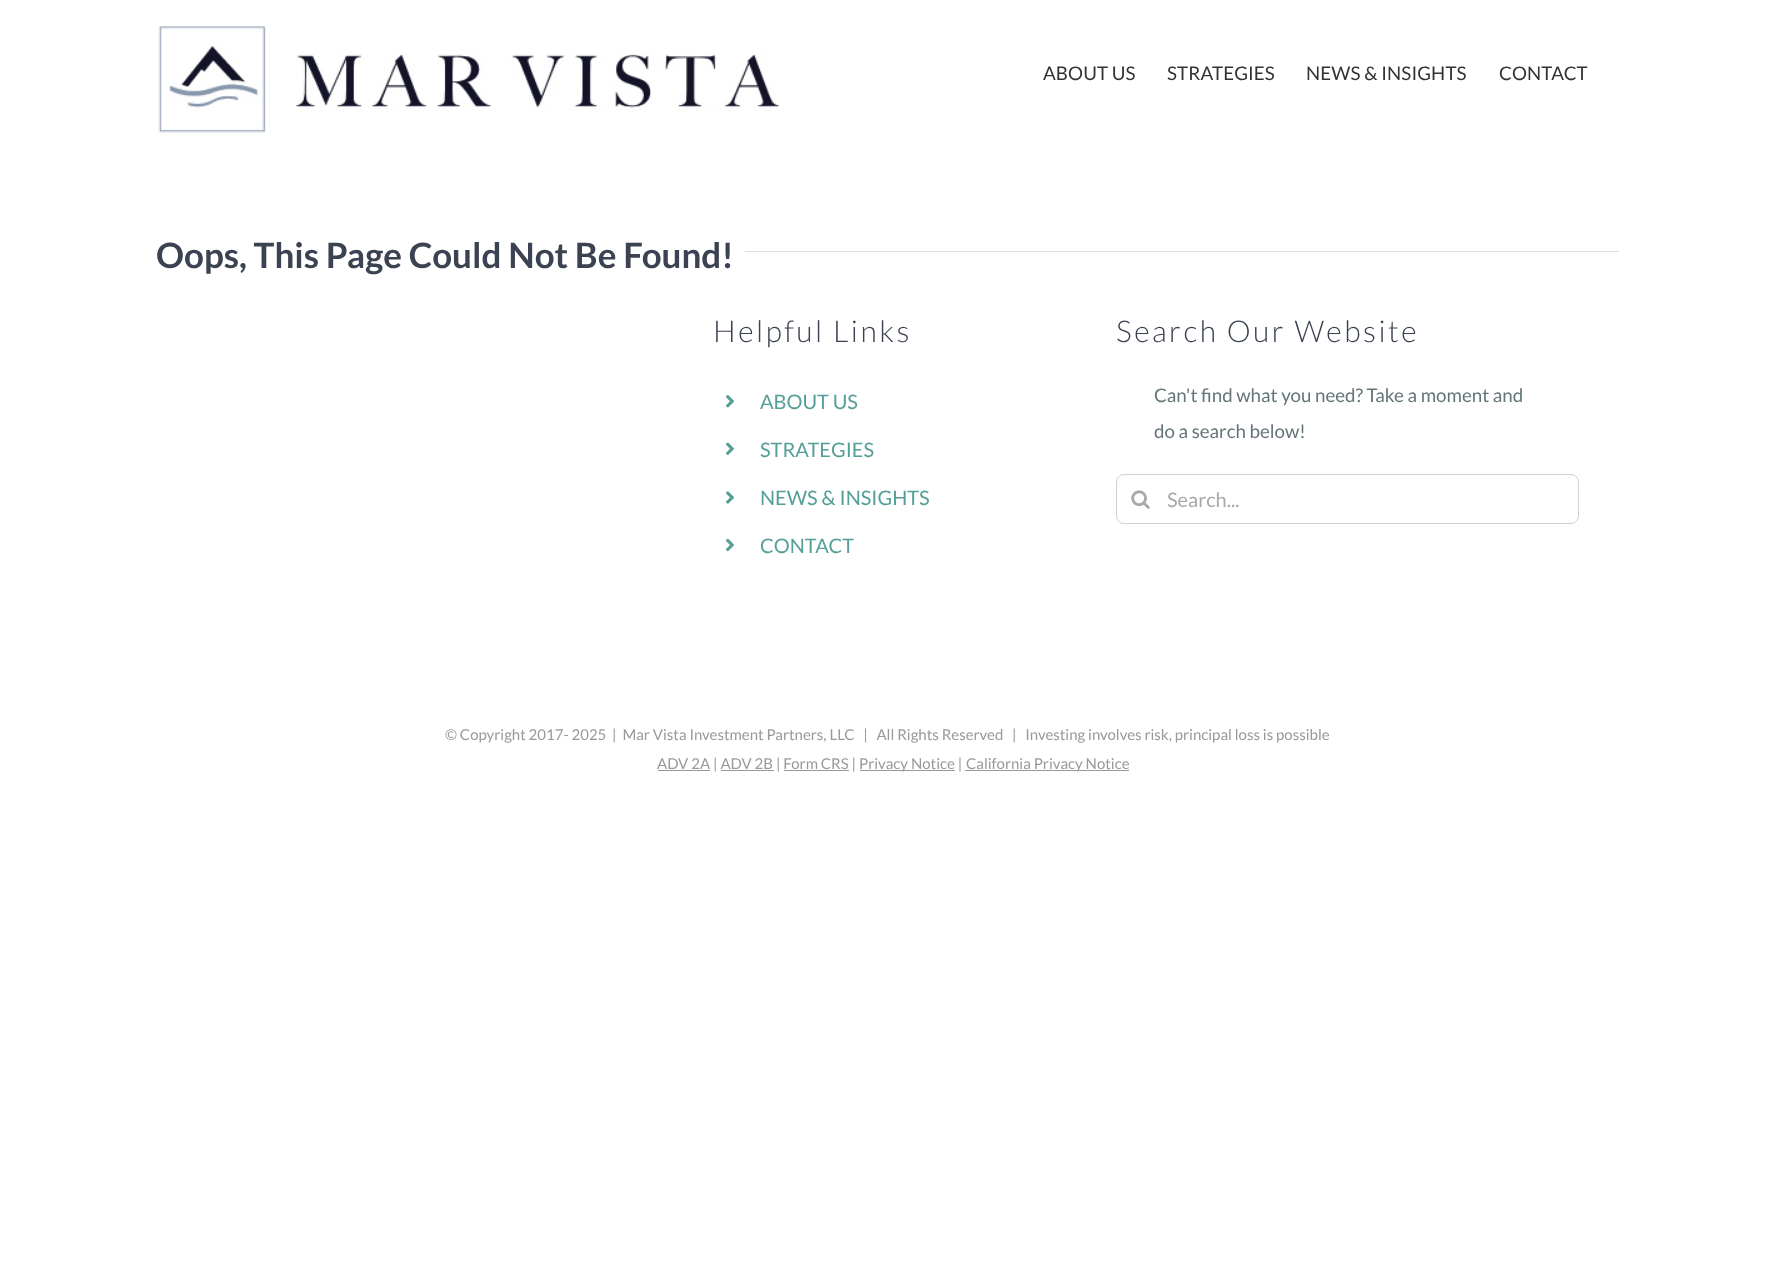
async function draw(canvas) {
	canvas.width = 1775;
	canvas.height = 1269;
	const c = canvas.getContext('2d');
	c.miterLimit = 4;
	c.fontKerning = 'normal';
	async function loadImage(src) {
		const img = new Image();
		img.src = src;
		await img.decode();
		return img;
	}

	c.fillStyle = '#fff';
	c.fillRect(0, 0, 1775, 1269);
	c.drawImage(await loadImage('img1.png'), 158, 26, 621, 107);
	c.letterSpacing = '0.1px';
	c.font = '18.75px Lato';
	c.fillStyle = '#333';
	for (const [text, x, y] of [
		['ABOUT US', 1043, 80],
		['STRATEGIES', 1167, 80],
		['NEWS & INSIGHTS', 1306, 80],
		['CONTACT', 1499, 80],
	]) {
		c.fillText(text, x, y);
	}
	c.letterSpacing = '0px';
	c.font = 'bold 35px Lato';
	c.fillStyle = '#3b4251';
	c.fillText('Oops, This Page Could Not Be Found!', 156, 268);
	c.fillStyle = '#e0dede';
	c.fillRect(745, 251, 874, 1);
	c.letterSpacing = '2.5px';
	c.font = '300 30px Lato';
	c.fillStyle = '#3b4251';
	c.fillText('Helpful Links', 713, 342);
	c.drawImage(await loadImage('img2.png'), 726, 395, 8, 13);
	c.letterSpacing = '0px';
	c.font = '20px Lato';
	c.fillStyle = '#549f97';
	c.fillText('ABOUT US', 760, 409);
	c.drawImage(await loadImage('img3.png'), 726, 442, 8, 13);
	c.fillText('STRATEGIES', 760, 457);
	c.drawImage(await loadImage('img4.png'), 726, 491, 8, 13);
	c.fillText('NEWS & INSIGHTS', 760, 505);
	c.drawImage(await loadImage('img5.png'), 726, 538, 8, 14);
	c.fillText('CONTACT', 760, 553);
	c.letterSpacing = '2.5px';
	c.font = '300 30px Lato';
	c.fillStyle = '#3b4251';
	c.fillText('Search Our Website', 1116, 342);
	c.letterSpacing = '0px';
	c.font = '18.75px Lato';
	c.fillStyle = '#647579';
	c.fillText('Can\'t find what you need? Take a moment and', 1154, 402);
	c.fillText('do a search below!', 1154, 438);
	c.beginPath();
	c.roundRect(1116.5, 474.5, 462, 49, 7.5);
	c.strokeStyle = '#d2d2d2';
	c.stroke();
	c.drawImage(await loadImage('img6.png'), 1131, 490, 19, 19);
	c.font = '20px Lato';
	c.fillStyle = '#aaa9a9';
	c.fillText('Search...', 1167, 507);
	c.font = '15px Lato';
	c.fillStyle = '#999';
	c.fillText('© Copyright 2017- 2025  |  Mar Vista Investment Partners, LLC   |   All Rights Reserved   |   Investing involves risk, principal loss is possible', 445, 740);
	c.fillRect(658, 770, 52, 1);
	c.fillText('ADV 2A | ADV 2B | Form CRS |', 657, 769);
	c.fillRect(860, 770, 95, 1);
	c.fillText('Privacy Notice |', 859, 769);
	c.fillRect(965, 770, 164, 1);
	c.fillText('California Privacy Notice', 966, 769);
	c.fillRect(721, 770, 53, 1);
	c.fillRect(784, 770, 65, 1);
}

draw(document.querySelector('canvas'));
